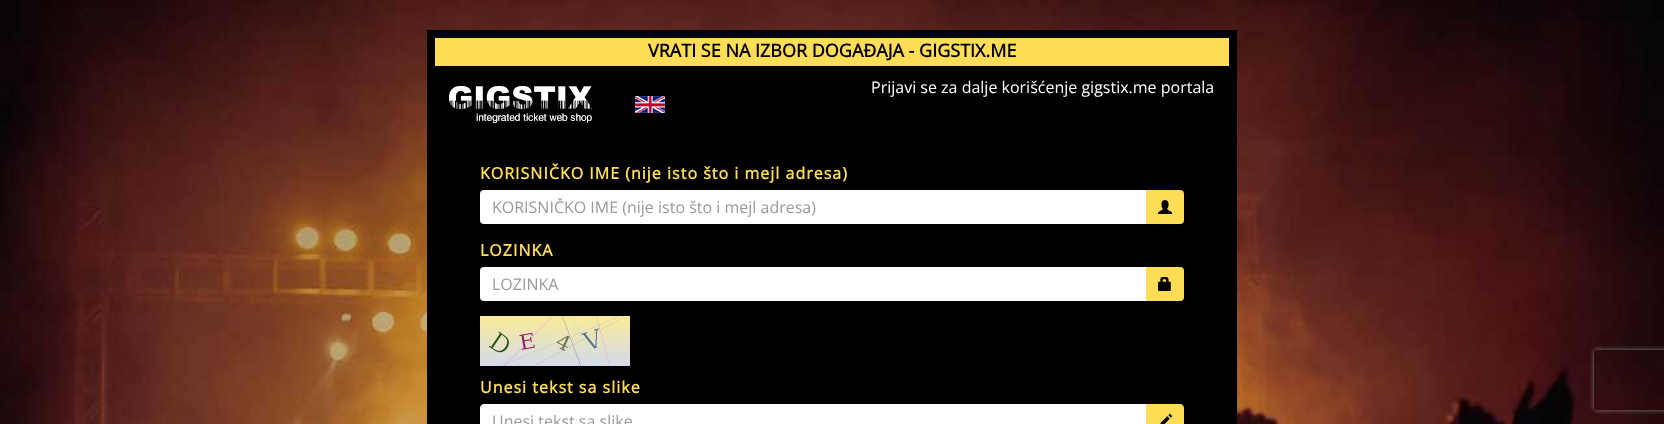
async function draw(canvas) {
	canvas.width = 1664;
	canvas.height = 424;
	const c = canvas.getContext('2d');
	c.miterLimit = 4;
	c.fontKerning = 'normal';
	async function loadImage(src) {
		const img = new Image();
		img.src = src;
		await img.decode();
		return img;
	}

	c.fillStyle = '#fff';
	c.fillRect(0, 0, 1664, 424);
	c.drawImage(await loadImage('img1.png'), 0, 0, 1664, 424);
	c.fillStyle = '#000';
	c.fillRect(427, 30, 810, 394);
	c.fillStyle = '#ffdd57';
	c.fillRect(435, 38, 794, 28);
	c.font = 'bold 18px Open Sans';
	c.fillStyle = '#000';
	c.fillText('VRATI SE NA IZBOR DOGAĐAJA - GIGSTIX.ME', 648, 57);
	c.drawImage(await loadImage('img2.png'), 449, 86, 143, 37);
	c.drawImage(await loadImage('img3.png'), 635, 96, 30, 17);
	c.font = '16px Open Sans';
	c.fillStyle = '#fff';
	c.fillText('Prijavi se za dalje korišćenje gigstix.me portala', 871, 93);
	c.letterSpacing = '1px';
	c.font = 'bold 16px Open Sans';
	c.fillStyle = '#ffdd57';
	c.fillText('KORISNIČKO IME (nije isto što i mejl adresa)', 480, 179);
	c.fillStyle = '#fff';
	c.beginPath();
	c.roundRect(480, 190, 666, 34, [4, 0, 0, 4]);
	c.fill();
	c.letterSpacing = '0px';
	c.font = '16px Open Sans';
	c.fillStyle = '#999';
	c.fillText('KORISNIČKO IME (nije isto što i mejl adresa)', 492, 213);
	c.fillStyle = '#ffdd57';
	c.beginPath();
	c.roundRect(1146, 190, 38, 34, [0, 4, 4, 0]);
	c.fill();
	c.drawImage(await loadImage('img4.png'), 1158, 200, 14, 14);
	c.letterSpacing = '1px';
	c.font = 'bold 16px Open Sans';
	c.fillText('LOZINKA', 480, 256);
	c.fillStyle = '#fff';
	c.beginPath();
	c.roundRect(480, 267, 666, 34, [4, 0, 0, 4]);
	c.fill();
	c.letterSpacing = '0px';
	c.font = '16px Open Sans';
	c.fillStyle = '#999';
	c.fillText('LOZINKA', 492, 290);
	c.fillStyle = '#ffdd57';
	c.beginPath();
	c.roundRect(1146, 267, 38, 34, [0, 4, 4, 0]);
	c.fill();
	c.drawImage(await loadImage('img5.png'), 1158, 277, 13, 14);
	c.drawImage(await loadImage('img6.png'), 480, 316, 150, 50);
	c.letterSpacing = '1px';
	c.font = 'bold 16px Open Sans';
	c.fillText('Unesi tekst sa slike', 480, 393);
	c.fillStyle = '#fff';
	c.beginPath();
	c.moveTo(484, 404);
	c.lineTo(1146, 404);
	c.lineTo(1146, 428);
	c.lineTo(484, 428);
	c.bezierCurveTo(482, 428, 480, 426, 480, 424);
	c.lineTo(480, 408);
	c.bezierCurveTo(480, 406, 482, 404, 484, 404);
	c.closePath();
	c.fill();
	c.letterSpacing = '0px';
	c.font = '16px Open Sans';
	c.fillStyle = '#999';
	c.fillText('Unesi tekst sa slike', 492, 427);
	c.fillStyle = '#ffdd57';
	c.beginPath();
	c.moveTo(1146, 404);
	c.lineTo(1180, 404);
	c.bezierCurveTo(1182, 404, 1184, 406, 1184, 408);
	c.lineTo(1184, 424);
	c.bezierCurveTo(1184, 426, 1182, 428, 1180, 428);
	c.lineTo(1146, 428);
	c.closePath();
	c.fill();
	c.drawImage(await loadImage('img7.png'), 1160, 413, 13, 11);
	c.save();
	c.beginPath();
	c.moveTo(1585, 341);
	c.lineTo(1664, 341);
	c.lineTo(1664, 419);
	c.lineTo(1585, 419);
	c.closePath();
	c.moveTo(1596, 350);
	c.lineTo(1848, 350);
	c.bezierCurveTo(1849, 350, 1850, 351, 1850, 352);
	c.lineTo(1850, 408);
	c.bezierCurveTo(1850, 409, 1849, 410, 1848, 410);
	c.lineTo(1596, 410);
	c.bezierCurveTo(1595, 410, 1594, 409, 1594, 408);
	c.lineTo(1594, 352);
	c.bezierCurveTo(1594, 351, 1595, 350, 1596, 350);
	c.closePath();
	c.clip('evenodd');
	c.fillStyle = '#808080';
	c.filter = 'blur(2.5px)';
	c.beginPath();
	c.roundRect(1594, 350, 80, 60, 2);
	c.fill();
	c.filter = 'none';
	c.restore();
}

draw(document.querySelector('canvas'));
